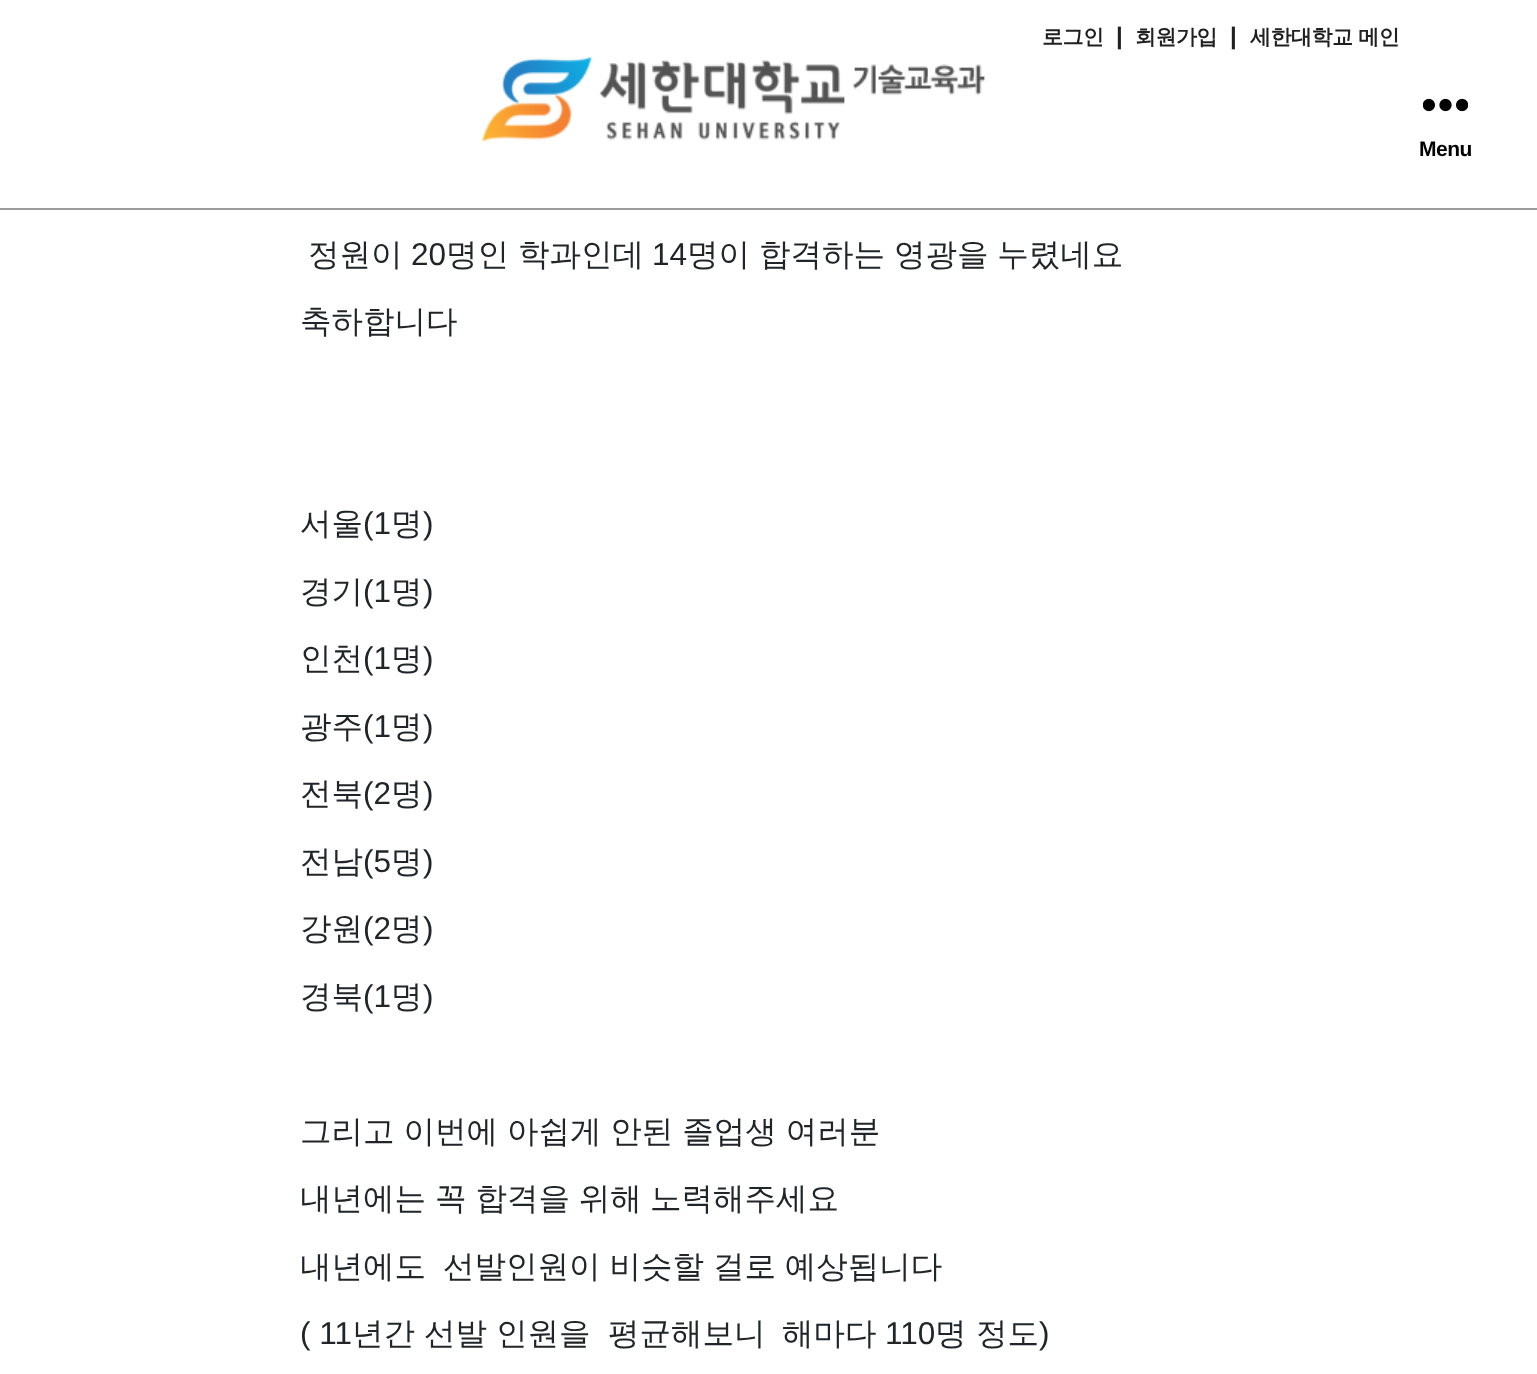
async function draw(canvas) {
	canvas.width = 1537;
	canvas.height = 1374;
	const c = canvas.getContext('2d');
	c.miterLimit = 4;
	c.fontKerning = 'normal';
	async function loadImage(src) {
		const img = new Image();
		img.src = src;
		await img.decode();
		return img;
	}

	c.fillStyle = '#fff';
	c.fillRect(0, 0, 1537, 1374);
	c.fillStyle = '#9d9d9d';
	c.fillRect(0, 208, 1537, 2);
	c.letterSpacing = '-0.5px';
	c.font = 'bold 21px WenQuanYi Zen Hei';
	c.fillStyle = '#202020';
	c.fillText('로그인', 1042, 44);
	c.font = 'bold 24px Liberation Sans';
	c.fillText('|', 1116, 44);
	c.font = 'bold 21px WenQuanYi Zen Hei';
	c.fillText('회원가입', 1135, 44);
	c.font = 'bold 24px Liberation Sans';
	c.fillText('|', 1230, 44);
	c.font = 'bold 21px WenQuanYi Zen Hei';
	c.fillText('세한대학교 메인', 1250, 44);
	c.drawImage(await loadImage('img1.png'), 482, 57, 503, 85);
	c.drawImage(await loadImage('img2.png'), 1423, 98, 45, 14);
	c.font = 'bold 21px Liberation Sans';
	c.fillStyle = '#000';
	c.fillText('Menu', 1419, 156);
	c.letterSpacing = '0px';
	c.font = '500 31.5px WenQuanYi Zen Hei';
	c.fillStyle = '#212529';
	c.fillText('정원이', 308, 265);
	c.font = '31.5px Liberation Sans';
	c.fillText('20', 411, 265);
	c.wordSpacing = '-0.5px';
	c.font = '500 31.5px WenQuanYi Zen Hei';
	c.fillText('명인 학과인데', 446, 265);
	c.wordSpacing = '0px';
	c.font = '31.5px Liberation Sans';
	c.fillText('14', 652, 265);
	c.wordSpacing = '-0.5px';
	c.font = '500 31.5px WenQuanYi Zen Hei';
	c.fillText('명이 합격하는 영광을 누렸네요', 687, 265);
	c.wordSpacing = '0px';
	c.fillText('축하합니다', 300, 332);
	c.fillText('서울', 300, 534);
	c.font = '31.5px Liberation Sans';
	c.fillText('(1', 363, 534);
	c.font = '500 31.5px WenQuanYi Zen Hei';
	c.fillText('명', 391, 534);
	c.font = '31.5px Liberation Sans';
	c.fillText(')', 423, 534);
	c.font = '500 31.5px WenQuanYi Zen Hei';
	c.fillText('경기', 300, 602);
	c.font = '31.5px Liberation Sans';
	c.fillText('(1', 363, 602);
	c.font = '500 31.5px WenQuanYi Zen Hei';
	c.fillText('명', 391, 602);
	c.font = '31.5px Liberation Sans';
	c.fillText(')', 423, 602);
	c.font = '500 31.5px WenQuanYi Zen Hei';
	c.fillText('인천', 300, 669);
	c.font = '31.5px Liberation Sans';
	c.fillText('(1', 363, 669);
	c.font = '500 31.5px WenQuanYi Zen Hei';
	c.fillText('명', 391, 669);
	c.font = '31.5px Liberation Sans';
	c.fillText(')', 423, 669);
	c.font = '500 31.5px WenQuanYi Zen Hei';
	c.fillText('광주', 300, 737);
	c.font = '31.5px Liberation Sans';
	c.fillText('(1', 363, 737);
	c.font = '500 31.5px WenQuanYi Zen Hei';
	c.fillText('명', 391, 737);
	c.font = '31.5px Liberation Sans';
	c.fillText(')', 423, 737);
	c.font = '500 31.5px WenQuanYi Zen Hei';
	c.fillText('전북', 300, 804);
	c.font = '31.5px Liberation Sans';
	c.fillText('(2', 363, 804);
	c.font = '500 31.5px WenQuanYi Zen Hei';
	c.fillText('명', 391, 804);
	c.font = '31.5px Liberation Sans';
	c.fillText(')', 423, 804);
	c.font = '500 31.5px WenQuanYi Zen Hei';
	c.fillText('전남', 300, 872);
	c.font = '31.5px Liberation Sans';
	c.fillText('(5', 363, 872);
	c.font = '500 31.5px WenQuanYi Zen Hei';
	c.fillText('명', 391, 872);
	c.font = '31.5px Liberation Sans';
	c.fillText(')', 423, 872);
	c.font = '500 31.5px WenQuanYi Zen Hei';
	c.fillText('강원', 300, 939);
	c.font = '31.5px Liberation Sans';
	c.fillText('(2', 363, 939);
	c.font = '500 31.5px WenQuanYi Zen Hei';
	c.fillText('명', 391, 939);
	c.font = '31.5px Liberation Sans';
	c.fillText(')', 423, 939);
	c.font = '500 31.5px WenQuanYi Zen Hei';
	c.fillText('경북', 300, 1007);
	c.font = '31.5px Liberation Sans';
	c.fillText('(1', 363, 1007);
	c.font = '500 31.5px WenQuanYi Zen Hei';
	c.fillText('명', 391, 1007);
	c.font = '31.5px Liberation Sans';
	c.fillText(')', 423, 1007);
	c.wordSpacing = '-0.5px';
	c.font = '500 31.5px WenQuanYi Zen Hei';
	c.fillText('그리고 이번에 아쉽게 안된 졸업생 여러분', 300, 1142);
	c.fillText('내년에는 꼭 합격을 위해', 300, 1209);
	c.wordSpacing = '0px';
	c.fillText('노력해주세요', 650, 1209);
	c.fillText('내년에도', 300, 1277);
	c.wordSpacing = '-0.5px';
	c.fillText('선발인원이 비슷할 걸로 예상됩니다', 443, 1277);
	c.wordSpacing = '0px';
	c.font = '31.5px Liberation Sans';
	c.fillText('( 11', 300, 1344);
	c.font = '500 31.5px WenQuanYi Zen Hei';
	for (const [text, x, y] of [
		['년간', 352, 1344],
		['선발', 424, 1344],
		['인원을', 496, 1344],
		['평균해보니', 608, 1344],
		['해마다', 782, 1344],
	]) {
		c.fillText(text, x, y);
	}
	c.font = '31.5px Liberation Sans';
	c.fillText('110', 885, 1344);
	c.font = '500 31.5px WenQuanYi Zen Hei';
	c.fillText('명 정도', 935, 1344);
	c.font = '31.5px Liberation Sans';
	c.fillText(')', 1039, 1344);
}

draw(document.querySelector('canvas'));
